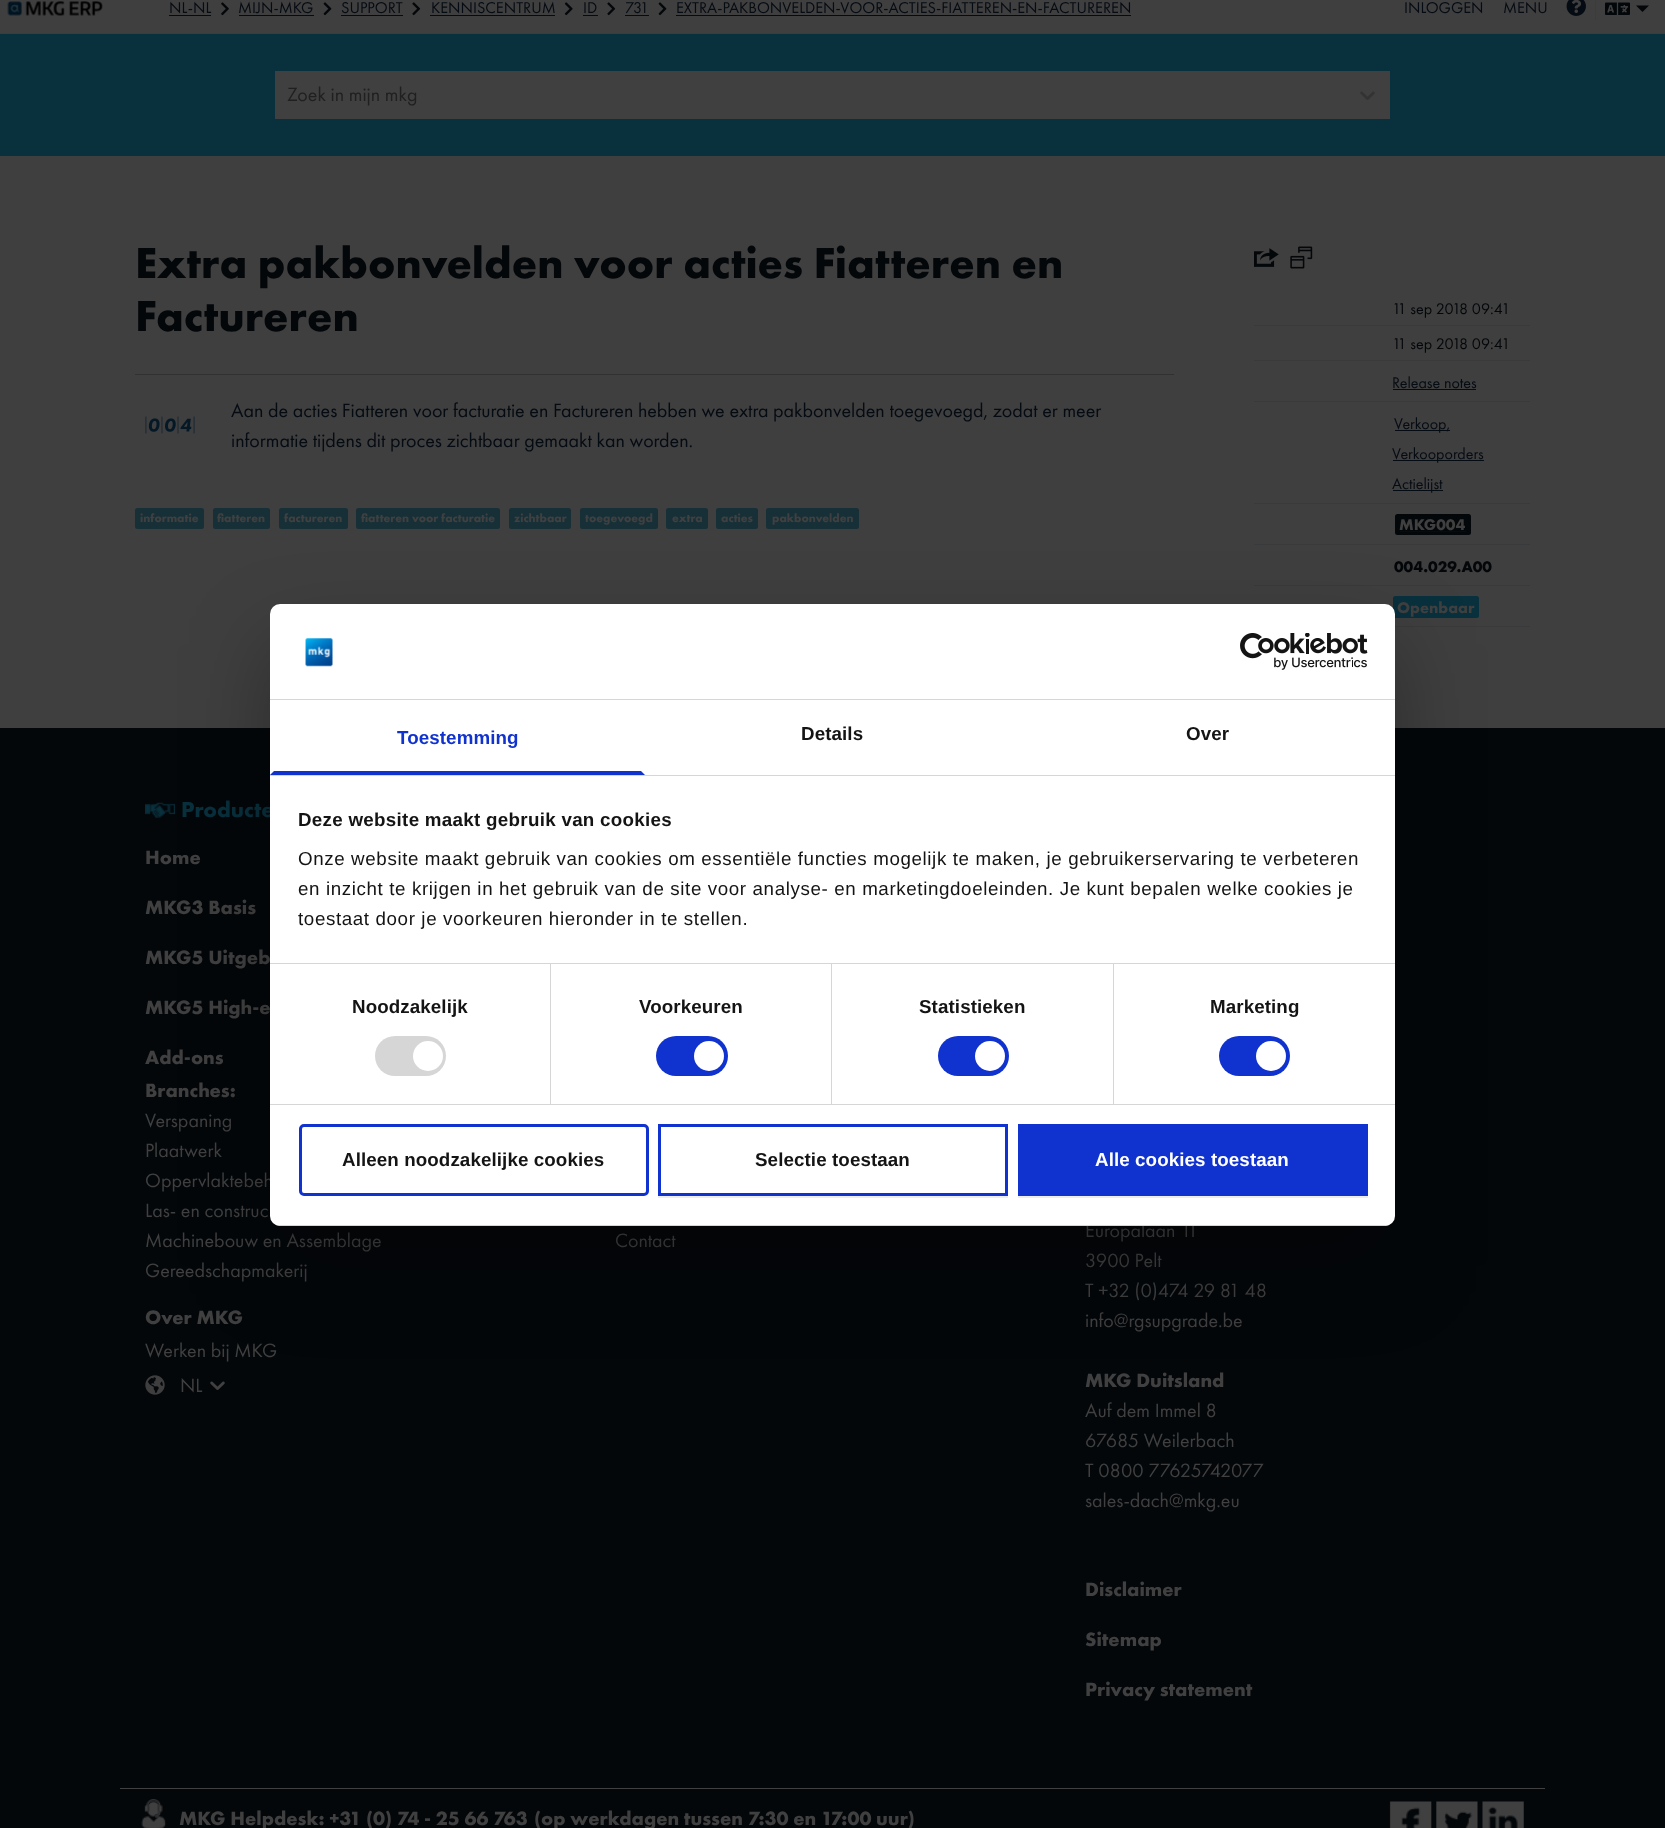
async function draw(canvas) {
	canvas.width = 1665;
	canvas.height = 1828;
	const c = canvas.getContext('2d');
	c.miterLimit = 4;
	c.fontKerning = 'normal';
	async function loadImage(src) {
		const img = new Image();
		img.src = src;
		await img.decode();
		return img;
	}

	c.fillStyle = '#3f3f3f';
	c.fillRect(0, 0, 1665, 1828);
	c.fillStyle = '#3c3c3c';
	c.fillRect(0, 33, 1665, 1);
	c.drawImage(await loadImage('img1.png'), 7, 1, 96, 15);
	c.font = '16.25px Futura PT';
	c.fillStyle = '#050b12';
	c.fillText('NL-NL', 169, 13);
	c.fillRect(169, 15, 42, 1);
	c.drawImage(await loadImage('img2.png'), 221, 2, 8, 14);
	c.fillText('MIJN-MKG', 238, 13);
	c.fillRect(239, 15, 75, 1);
	c.drawImage(await loadImage('img3.png'), 323, 2, 9, 14);
	c.fillText('SUPPORT', 341, 13);
	c.fillRect(341, 15, 62, 1);
	c.drawImage(await loadImage('img4.png'), 412, 2, 9, 14);
	c.fillText('KENNISCENTRUM', 431, 13);
	c.fillRect(430, 15, 125, 1);
	c.drawImage(await loadImage('img5.png'), 564, 2, 9, 14);
	c.fillText('ID', 583, 13);
	c.fillRect(583, 15, 15, 1);
	c.drawImage(await loadImage('img4.png'), 607, 2, 9, 14);
	c.fillText('731', 625, 13);
	c.fillRect(625, 15, 24, 1);
	c.drawImage(await loadImage('img3.png'), 658, 2, 9, 14);
	c.fillText('EXTRA-PAKBONVELDEN-VOOR-ACTIES-FIATTEREN-EN-FACTUREREN', 676, 13);
	c.fillRect(676, 15, 455, 1);
	c.fillText('INLOGGEN', 1404, 13);
	c.fillText('MENU', 1503, 13);
	c.drawImage(await loadImage('img6.png'), 1566, 0, 20, 16);
	c.fillStyle = '#3c3c3c';
	c.fillRect(1595, 0, 1, 20);
	c.drawImage(await loadImage('img7.png'), 1605, 2, 25, 13);
	c.fillStyle = '#04070a';
	c.beginPath();
	c.moveTo(1636, 5.5);
	c.lineTo(1642.5, 12);
	c.lineTo(1649, 5.5);
	c.closePath();
	c.fill();
	c.fillStyle = '#09303d';
	c.fillRect(0, 34, 1665, 122);
	c.fillStyle = '#404040';
	c.fillRect(275, 71, 1115, 48);
	c.font = '20px Futura PT';
	c.fillStyle = '#202020';
	c.fillText('Zoek in mijn mkg', 287, 101);
	c.drawImage(await loadImage('img8.png'), 1360, 91, 15, 9);
	c.font = 'bold 45px Futura PT';
	c.fillStyle = '#04070a';
	c.fillText('Extra pakbonvelden voor acties Fiatteren en', 135, 278);
	c.fillText('Factureren', 135, 331);
	c.fillStyle = '#313132';
	c.fillRect(135, 374, 1039, 1);
	c.drawImage(await loadImage('img9.png'), 145, 416, 50, 18);
	c.font = '20px Futura PT';
	c.fillStyle = '#050b12';
	c.fillText('Aan de acties Fiatteren voor facturatie en Factureren hebben we extra pakbonvelden toegevoegd, zodat er meer', 231, 417);
	c.fillText('informatie tijdens dit proces zichtbaar gemaakt kan worden.', 231, 447);
	c.fillStyle = '#173038';
	c.beginPath();
	c.roundRect(135, 508, 69, 21, 2.5);
	c.fill();
	c.font = 'bold 12px Futura PT';
	c.fillStyle = '#404040';
	c.fillText('informatie', 140, 522);
	c.fillStyle = '#173038';
	c.beginPath();
	c.roundRect(213, 508, 57, 21, 2.5);
	c.fill();
	c.fillStyle = '#404040';
	c.fillText('fiatteren', 217, 522);
	c.fillStyle = '#173038';
	c.beginPath();
	c.roundRect(279, 508, 69, 21, 2.5);
	c.fill();
	c.fillStyle = '#404040';
	c.fillText('factureren', 284, 522);
	c.fillStyle = '#173038';
	c.beginPath();
	c.roundRect(356, 508, 144, 21, 2.5);
	c.fill();
	c.fillStyle = '#404040';
	c.fillText('fiatteren voor facturatie', 361, 522);
	c.fillStyle = '#173038';
	c.beginPath();
	c.roundRect(509, 508, 62, 21, 2.5);
	c.fill();
	c.fillStyle = '#404040';
	c.fillText('zichtbaar', 514, 522);
	c.fillStyle = '#173038';
	c.beginPath();
	c.roundRect(580, 508, 78, 21, 2.5);
	c.fill();
	c.fillStyle = '#404040';
	c.fillText('toegevoegd', 585, 522);
	c.fillStyle = '#173038';
	c.beginPath();
	c.roundRect(666, 508, 42, 21, 2.5);
	c.fill();
	c.fillStyle = '#404040';
	c.fillText('extra', 672, 522);
	c.fillStyle = '#173038';
	c.beginPath();
	c.roundRect(716, 508, 42, 21, 2.5);
	c.fill();
	c.fillStyle = '#404040';
	c.fillText('acties', 721, 522);
	c.fillStyle = '#173038';
	c.beginPath();
	c.roundRect(766, 508, 93, 21, 2.5);
	c.fill();
	c.fillStyle = '#404040';
	c.fillText('pakbonvelden', 772, 522);
	c.drawImage(await loadImage('img10.png'), 1254, 248, 25, 19);
	c.drawImage(await loadImage('img11.png'), 1290, 246, 23, 23);
	c.fillStyle = '#393a3b';
	c.fillRect(1254, 325, 276, 1);
	c.font = '16px Futura PT';
	c.fillStyle = '#04070a';
	c.fillText('11 sep 2018 09:41', 1392, 314);
	c.fillStyle = '#393a3b';
	c.fillRect(1254, 360, 276, 1);
	c.fillStyle = '#04070a';
	c.fillText('11 sep 2018 09:41', 1392, 349);
	c.fillStyle = '#393a3b';
	c.fillRect(1254, 401, 276, 1);
	c.fillStyle = '#050b12';
	c.fillText('Release notes', 1392, 388);
	for (const [x, y, w, h, color] of [
		[1393, 389, 83, 1, '#050b12'],
		[1254, 503, 276, 1, '#393a3b'],
		[1395, 430, 55, 1, '#050b12'],
	]) {
		c.fillStyle = color;
		c.fillRect(x, y, w, h);
	}
	c.fillText('Verkoop,', 1394, 429);
	c.fillRect(1393, 460, 91, 1);
	c.fillText('Verkooporders', 1392, 459);
	c.fillRect(1393, 490, 50, 1);
	c.fillText('Actielijst', 1392, 489);
	c.fillStyle = '#393a3b';
	c.fillRect(1254, 544, 276, 1);
	c.fillStyle = '#04070a';
	c.beginPath();
	c.roundRect(1395, 514, 76, 21, 2.5);
	c.fill();
	c.font = 'bold 16px Futura PT';
	c.fillStyle = '#404040';
	c.fillText('MKG004', 1399, 530);
	c.fillStyle = '#050b12';
	c.fillRect(1400, 531, 66, 1);
	c.fillStyle = '#393a3b';
	c.fillRect(1254, 585, 276, 1);
	c.fillStyle = '#04070a';
	c.fillText('004.029.A00', 1394, 572);
	c.fillStyle = '#393a3b';
	c.fillRect(1395, 626, 135, 1);
	c.fillStyle = '#09303d';
	c.beginPath();
	c.roundRect(1393, 596, 86, 22, 2.5);
	c.fill();
	c.fillStyle = '#404040';
	c.fillText('Openbaar', 1397, 613);
	c.fillStyle = '#04070a';
	c.fillRect(0, 728, 1665, 1100);
	c.drawImage(await loadImage('img12.png'), 145, 802, 30, 16);
	c.font = 'bold 22.5px Futura PT';
	c.fillStyle = '#09303d';
	c.fillText('Producte', 181, 817);
	c.font = 'bold 20px Futura PT';
	c.fillStyle = '#404040';
	for (const [text, x, y] of [
		['Home', 145, 864],
		['MKG3 Basis', 145, 914],
		['MKG5 Uitgeb', 145, 964],
		['MKG5 High-e', 145, 1014],
		['Add-ons', 145, 1064],
		['Branches:', 145, 1097],
	]) {
		c.fillText(text, x, y);
	}
	c.font = '20px Futura PT';
	for (const [text, x, y] of [
		['Verspaning', 145, 1127],
		['Plaatwerk', 145, 1157],
		['Oppervlaktebeh', 145, 1187],
		['Las- en construc', 145, 1217],
		['Machinebouw en Assemblage', 145, 1247],
		['Gereedschapmakerij', 145, 1277],
	]) {
		c.fillText(text, x, y);
	}
	c.font = 'bold 20px Futura PT';
	c.fillText('Over MKG', 145, 1324);
	c.font = '20px Futura PT';
	c.fillText('Werken bij MKG', 145, 1357);
	c.drawImage(await loadImage('img13.png'), 145, 1375, 20, 20);
	c.fillText('NL', 180, 1392);
	c.drawImage(await loadImage('img14.png'), 210, 1381, 15, 9);
	for (const [text, x, y] of [
		['Contact', 615, 1247],
		['Europalaan 11', 1085, 1237],
		['3900 Pelt', 1085, 1267],
		['T +32 (0)474 29 81 48', 1085, 1297],
		['info@rgsupgrade.be', 1085, 1327],
	]) {
		c.fillText(text, x, y);
	}
	c.font = 'bold 20px Futura PT';
	c.fillText('MKG Duitsland', 1085, 1387);
	c.font = '20px Futura PT';
	for (const [text, x, y] of [
		['Auf dem Immel 8', 1085, 1417],
		['67685 Weilerbach', 1085, 1447],
		['T 0800 77625742077', 1085, 1477],
		['sales-dach@mkg.eu', 1085, 1507],
	]) {
		c.fillText(text, x, y);
	}
	c.font = 'bold 20px Futura PT';
	for (const [text, x, y] of [
		['Disclaimer', 1085, 1596],
		['Sitemap', 1085, 1646],
		['Privacy statement', 1085, 1696],
	]) {
		c.fillText(text, x, y);
	}
	c.fillRect(120, 1788, 1425, 1);
	c.drawImage(await loadImage('img15.png'), 141, 1799, 26, 29);
	c.fillText('MKG Helpdesk: +31 (0) 74 - 25 66 763', 179, 1825);
	c.fillText('(op werkdagen tussen 7:30 en 17:00 uur)', 534, 1825);
	c.drawImage(await loadImage('img16.png'), 1389, 1801, 43, 27);
	c.drawImage(await loadImage('img17.png'), 1436, 1801, 42, 27);
	c.drawImage(await loadImage('img18.png'), 1482, 1801, 42, 27);
	c.fillStyle = '#0000004d';
	c.filter = 'blur(42.5px)';
	c.beginPath();
	c.roundRect(270, 644, 1125, 622, 10);
	c.fill();
	c.filter = 'none';
	c.fillStyle = '#fff';
	c.beginPath();
	c.roundRect(270, 604, 1125, 622, 10);
	c.fill();
	c.fillStyle = '#d6d6d6';
	c.fillRect(270, 699, 1125, 1);
	c.drawImage(await loadImage('img19.png'), 305, 638, 28, 29);
	c.drawImage(await loadImage('img20.png'), 1240, 633, 128, 37);
	c.fillRect(270, 775, 1125, 1);
	c.fillStyle = '#1032cf';
	c.beginPath();
	c.moveTo(645, 775);
	c.lineTo(270, 775);
	c.lineTo(274, 771);
	c.lineTo(641, 771);
	c.closePath();
	c.fill();
	c.letterSpacing = '0.1px';
	c.font = 'bold 18.75px Liberation Sans';
	c.fillText('Toestemming', 397, 744);
	c.fillStyle = '#141414';
	c.fillText('Details', 801, 740);
	c.fillText('Over', 1186, 740);
	c.fillStyle = '#d6d6d6';
	c.fillRect(270, 963, 1125, 1);
	c.letterSpacing = '0.3px';
	c.fillStyle = '#141414';
	c.fillText('Deze website maakt gebruik van cookies', 298, 826);
	c.letterSpacing = '0.62px';
	c.font = '18.75px Liberation Sans';
	for (const [text, x, y] of [
		['Onze website maakt gebruik van cookies om essentiële functies mogelijk te maken, je gebruikerservaring te verbeteren', 298, 865],
		['en inzicht te krijgen in het gebruik van de site voor analyse- en marketingdoeleinden. Je kunt bepalen welke cookies je', 298, 895],
		['toestaat door je voorkeuren hieronder in te stellen.', 298, 925],
	]) {
		c.fillText(text, x, y);
	}
	c.fillStyle = '#d6d6d6';
	c.fillRect(270, 1104, 1125, 1);
	c.fillRect(550, 964, 1, 140);
	c.letterSpacing = '0.1px';
	c.font = 'bold 18.75px Liberation Sans';
	c.fillStyle = '#141414';
	c.fillText('Noodzakelijk', 352, 1013);
	c.fillStyle = '#d6d6d6';
	c.beginPath();
	c.roundRect(375, 1036, 71, 40, 20);
	c.fill();
	c.fillStyle = '#fff';
	c.beginPath();
	c.arc(428, 1056, 15, 0, 2 * Math.PI);
	c.fill();
	c.fillStyle = '#d6d6d6';
	c.fillRect(831, 964, 1, 140);
	c.fillStyle = '#141414';
	c.fillText('Voorkeuren', 639, 1013);
	c.fillStyle = '#1032cf';
	c.beginPath();
	c.roundRect(656, 1036, 72, 40, 20);
	c.fill();
	c.fillStyle = '#fff';
	c.beginPath();
	c.arc(709, 1056, 15, 0, 2 * Math.PI);
	c.fill();
	c.fillStyle = '#d6d6d6';
	c.fillRect(1113, 964, 1, 140);
	c.fillStyle = '#141414';
	c.fillText('Statistieken', 919, 1013);
	c.fillStyle = '#1032cf';
	c.beginPath();
	c.roundRect(938, 1036, 71, 40, 20);
	c.fill();
	c.fillStyle = '#fff';
	c.beginPath();
	c.arc(990, 1056, 15, 0, 2 * Math.PI);
	c.fill();
	c.fillStyle = '#141414';
	c.fillText('Marketing', 1210, 1013);
	c.fillStyle = '#1032cf';
	c.beginPath();
	c.roundRect(1219, 1036, 71, 40, 20);
	c.fill();
	c.fillStyle = '#fff';
	c.beginPath();
	c.arc(1271, 1056, 15, 0, 2 * Math.PI);
	c.fill();
	c.save();
	c.beginPath();
	c.roundRect(270, 604, 1125, 622, 10);
	c.clip();
	c.fillStyle = '#d6d6d6';
	c.fillRect(270, 1225, 1125, 1);
	c.restore();
	c.beginPath();
	c.roundRect(300.5, 1125.5, 347, 69, 3.5);
	c.strokeStyle = '#1032cf';
	c.lineWidth = 3;
	c.stroke();
	c.fillStyle = '#141414';
	c.fillText('Alleen noodzakelijke cookies', 342, 1166);
	c.save();
	c.beginPath();
	c.rect(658, 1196, 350, 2);
	c.clip();
	c.fillStyle = '#00000012';
	c.filter = 'blur(0.5px)';
	c.beginPath();
	c.rect(658, 1125, 350, 73);
	c.fill();
	c.filter = 'none';
	c.restore();
	c.strokeRect(659.5, 1125.5, 347, 69);
	c.fillText('Selectie toestaan', 755, 1166);
	c.fillStyle = '#00000012';
	c.filter = 'blur(0.5px)';
	c.beginPath();
	c.rect(1018, 1125, 350, 73);
	c.fill();
	c.filter = 'none';
	c.fillStyle = '#1032cf';
	c.beginPath();
	c.rect(1019.5, 1125.5, 347, 69);
	c.fill();
	c.stroke();
	c.fillStyle = '#fff';
	c.fillText('Alle cookies toestaan', 1095, 1166);
}

draw(document.querySelector('canvas'));
